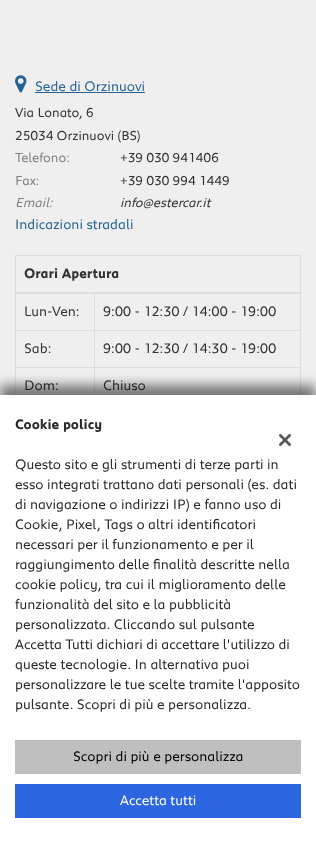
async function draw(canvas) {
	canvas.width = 316;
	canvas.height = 848;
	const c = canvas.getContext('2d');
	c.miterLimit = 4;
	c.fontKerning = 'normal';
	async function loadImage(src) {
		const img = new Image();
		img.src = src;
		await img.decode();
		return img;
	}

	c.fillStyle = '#efefef';
	c.fillRect(0, 0, 316, 848);
	c.drawImage(await loadImage('img1.png'), 15, 75, 12, 18);
	c.font = '14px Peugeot';
	c.fillStyle = '#276294';
	c.fillText('Sede di Orzinuovi', 35, 91);
	c.fillRect(35, 92, 110, 1);
	c.font = '13.25px Peugeot';
	c.fillStyle = '#333';
	c.fillText('Via Lonato, 6', 15, 117);
	c.fillText('25034 Orzinuovi (BS)', 15, 140);
	c.fillStyle = '#808080';
	c.fillText('Telefono:', 15, 162);
	c.fillStyle = '#333';
	c.fillText('+39 030 941406', 120, 162);
	c.fillStyle = '#808080';
	c.fillText('Fax:', 15, 185);
	c.fillStyle = '#333';
	c.fillText('+39 030 994 1449', 120, 185);
	c.font = 'italic 13.25px Peugeot';
	c.fillStyle = '#808080';
	c.fillText('Email:', 15, 207);
	c.fillStyle = '#333';
	c.fillText('info@estercar.it', 120, 207);
	c.font = '14px Peugeot';
	c.fillStyle = '#276294';
	c.fillText('Indicazioni stradali', 15, 229);
	for (const [x, y, w, h, color] of [
		[15, 255, 286, 1, '#ddd'],
		[300, 255, 1, 140, '#ddd'],
		[15, 255, 1, 140, '#ddd'],
		[94, 330, 207, 1, '#ddd'],
		[94, 367, 207, 1, '#ddd'],
		[94, 367, 1, 28, '#ddd'],
		[15, 367, 80, 1, '#ddd'],
		[94, 330, 1, 38, '#ddd'],
		[15, 330, 80, 1, '#ddd'],
		[94, 293, 1, 38, '#ddd'],
		[15, 292, 287, 2, '#ddd'],
	]) {
		c.fillStyle = color;
		c.fillRect(x, y, w, h);
	}
	c.font = 'bold 14px Peugeot';
	c.fillStyle = '#333';
	c.fillText('Orari Apertura', 24, 278);
	c.font = '14px Peugeot';
	for (const [text, x, y] of [
		['Lun-Ven:', 24, 316],
		['9:00 - 12:30 / 14:00 - 19:00', 103, 316],
		['Sab:', 24, 353],
		['9:00 - 12:30 / 14:30 - 19:00', 103, 353],
		['Dom:', 24, 390],
		['Chiuso', 103, 390],
	]) {
		c.fillText(text, x, y);
	}
	c.fillStyle = '#00000080';
	c.filter = 'blur(6px)';
	c.beginPath();
	c.rect(0, 385, 316, 453);
	c.fill();
	c.filter = 'none';
	c.fillStyle = '#fff';
	c.fillRect(0, 395, 316, 453);
	c.font = 'bold 14px Peugeot';
	c.fillStyle = '#2b2929';
	c.fillText('Cookie policy', 15, 429);
	c.font = '14px Peugeot';
	for (const [text, x, y] of [
		['Questo sito e gli strumenti di terze parti in', 15, 469],
		['esso integrati trattano dati personali (es. dati', 15, 489],
		['di navigazione o indirizzi IP) e fanno uso di', 15, 509],
		['Cookie, Pixel, Tags o altri identificatori', 15, 529],
		['necessari per il funzionamento e per il', 15, 549],
		['raggiungimento delle finalità descritte nella', 15, 569],
		['cookie policy, tra cui il miglioramento delle', 15, 589],
		['funzionalità del sito e la pubblicità', 15, 609],
		['personalizzata. Cliccando sul pulsante', 15, 629],
		['Accetta Tutti dichiari di accettare l\'utilizzo di', 15, 649],
		['queste tecnologie. In alternativa puoi', 15, 669],
		['personalizzare le tue scelte tramite l\'apposito', 15, 689],
		['pulsante. Scopri di più e personalizza.', 15, 709],
	]) {
		c.fillText(text, x, y);
	}
	c.fillStyle = '#bfbfbf';
	c.fillRect(15, 740, 286, 34);
	c.fillStyle = '#000';
	c.fillText('Scopri di più e personalizza', 73, 761);
	c.fillStyle = '#2c65e1';
	c.fillRect(15, 784, 286, 34);
	c.fillStyle = '#fff';
	c.fillText('Accetta tutti', 120, 805);
	c.drawImage(await loadImage('img2.png'), 279, 434, 12, 12);
}

draw(document.querySelector('canvas'));
